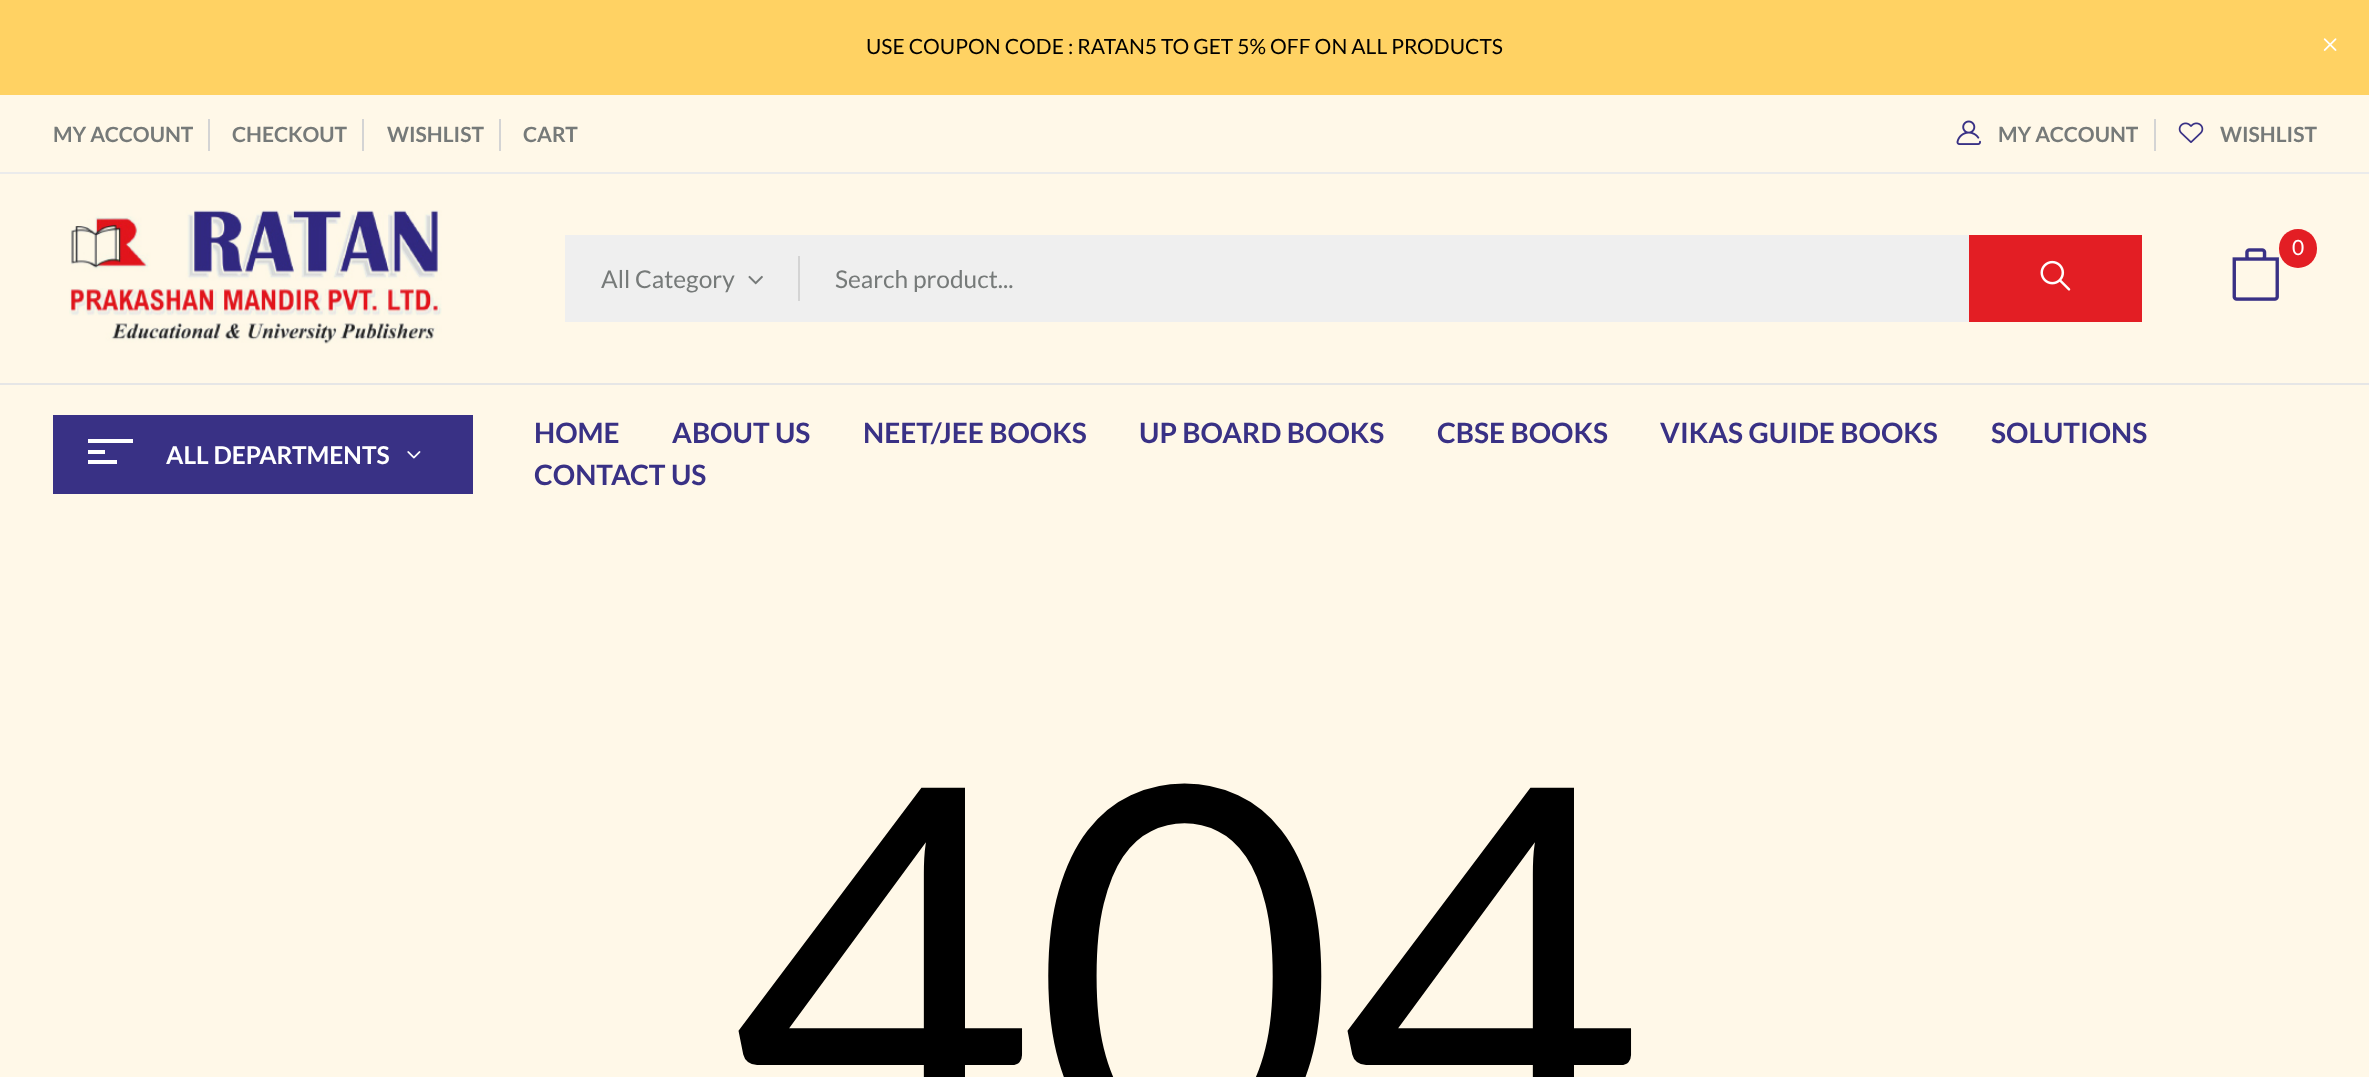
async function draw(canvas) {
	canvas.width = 2369;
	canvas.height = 1077;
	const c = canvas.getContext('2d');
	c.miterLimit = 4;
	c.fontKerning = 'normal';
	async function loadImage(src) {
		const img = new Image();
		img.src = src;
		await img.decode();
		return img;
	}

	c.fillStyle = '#fff8e8';
	c.fillRect(0, 0, 2369, 1077);
	c.fillStyle = '#ffd263';
	c.fillRect(0, 0, 2369, 95);
	c.font = '21px Lato';
	c.fillStyle = '#000';
	c.fillText('USE COUPON CODE : RATAN5 TO GET 5% OFF ON ALL PRODUCTS', 866, 54);
	c.drawImage(await loadImage('img1.png'), 2323, 38, 14, 13);
	c.fillStyle = '#ebebeb';
	c.fillRect(0, 172, 2369, 2);
	c.font = 'bold 21px Lato';
	c.fillStyle = '#767a79';
	c.fillText('MY ACCOUNT', 53, 142);
	c.fillStyle = '#d4d4d4';
	c.fillRect(208, 119, 2, 32);
	c.fillStyle = '#767a79';
	c.fillText('CHECKOUT', 232, 142);
	c.fillStyle = '#d4d4d4';
	c.fillRect(362, 119, 2, 32);
	c.fillStyle = '#767a79';
	c.fillText('WISHLIST', 387, 142);
	c.fillStyle = '#d4d4d4';
	c.fillRect(499, 119, 2, 32);
	c.fillStyle = '#767a79';
	c.fillText('CART', 523, 142);
	c.drawImage(await loadImage('img2.png'), 1956, 120, 25, 25);
	c.fillText('MY ACCOUNT', 1998, 142);
	c.fillStyle = '#d4d4d4';
	c.fillRect(2154, 119, 2, 32);
	c.drawImage(await loadImage('img3.png'), 2178, 122, 26, 21);
	c.fillStyle = '#767a79';
	c.fillText('WISHLIST', 2220, 142);
	c.fillStyle = '#e6e6e6';
	c.fillRect(0, 383, 2369, 2);
	c.drawImage(await loadImage('img4.png'), 69, 210, 373, 134);
	c.drawImage(await loadImage('img5.png'), 2232, 248, 47, 53);
	c.fillStyle = '#e31e24';
	c.beginPath();
	c.roundRect(2279, 229, 38, 39, 19);
	c.fill();
	c.font = '21px Lato';
	c.fillStyle = '#fff';
	c.fillText('0', 2292, 255);
	c.fillStyle = '#efefef';
	c.fillRect(565, 235, 1404, 87);
	c.font = '24.5px Lato';
	c.fillStyle = '#767a79';
	c.fillText('All Category', 601, 288);
	c.drawImage(await loadImage('img6.png'), 748, 275, 15, 10);
	c.fillStyle = '#d4d4d4';
	c.fillRect(798, 256, 2, 45);
	c.save();
	c.beginPath();
	c.rect(835, 263, 1099, 29);
	c.clip();
	c.fillStyle = '#767a79';
	c.fillText('Search product...', 835, 288);
	c.restore();
	c.fillStyle = '#e31e24';
	c.fillRect(1969, 235, 173, 87);
	c.drawImage(await loadImage('img7.png'), 2040, 260, 31, 31);
	for (const [x, y, w, h, color] of [
		[53, 415, 420, 79, '#393185'],
		[88, 450, 17, 4, '#fff'],
		[88, 439, 45, 4, '#fff'],
		[88, 460, 29, 4, '#fff'],
	]) {
		c.fillStyle = color;
		c.fillRect(x, y, w, h);
	}
	c.font = 'bold 24.5px Lato';
	c.fillText('ALL DEPARTMENTS', 166, 464);
	c.drawImage(await loadImage('img8.png'), 407, 451, 14, 8);
	c.font = 'bold 28px Lato';
	c.fillStyle = '#393185';
	for (const [text, x, y] of [
		['HOME', 534, 443],
		['ABOUT US', 672, 443],
		['NEET/JEE BOOKS', 863, 443],
		['UP BOARD BOOKS', 1139, 443],
		['CBSE BOOKS', 1437, 443],
		['VIKAS GUIDE BOOKS', 1660, 443],
		['SOLUTIONS', 1991, 443],
		['CONTACT US', 534, 485],
	]) {
		c.fillText(text, x, y);
	}
	c.font = '525px Lato';
	c.fillStyle = '#000';
	c.fillText('404', 728, 1164);
}

draw(document.querySelector('canvas'));
